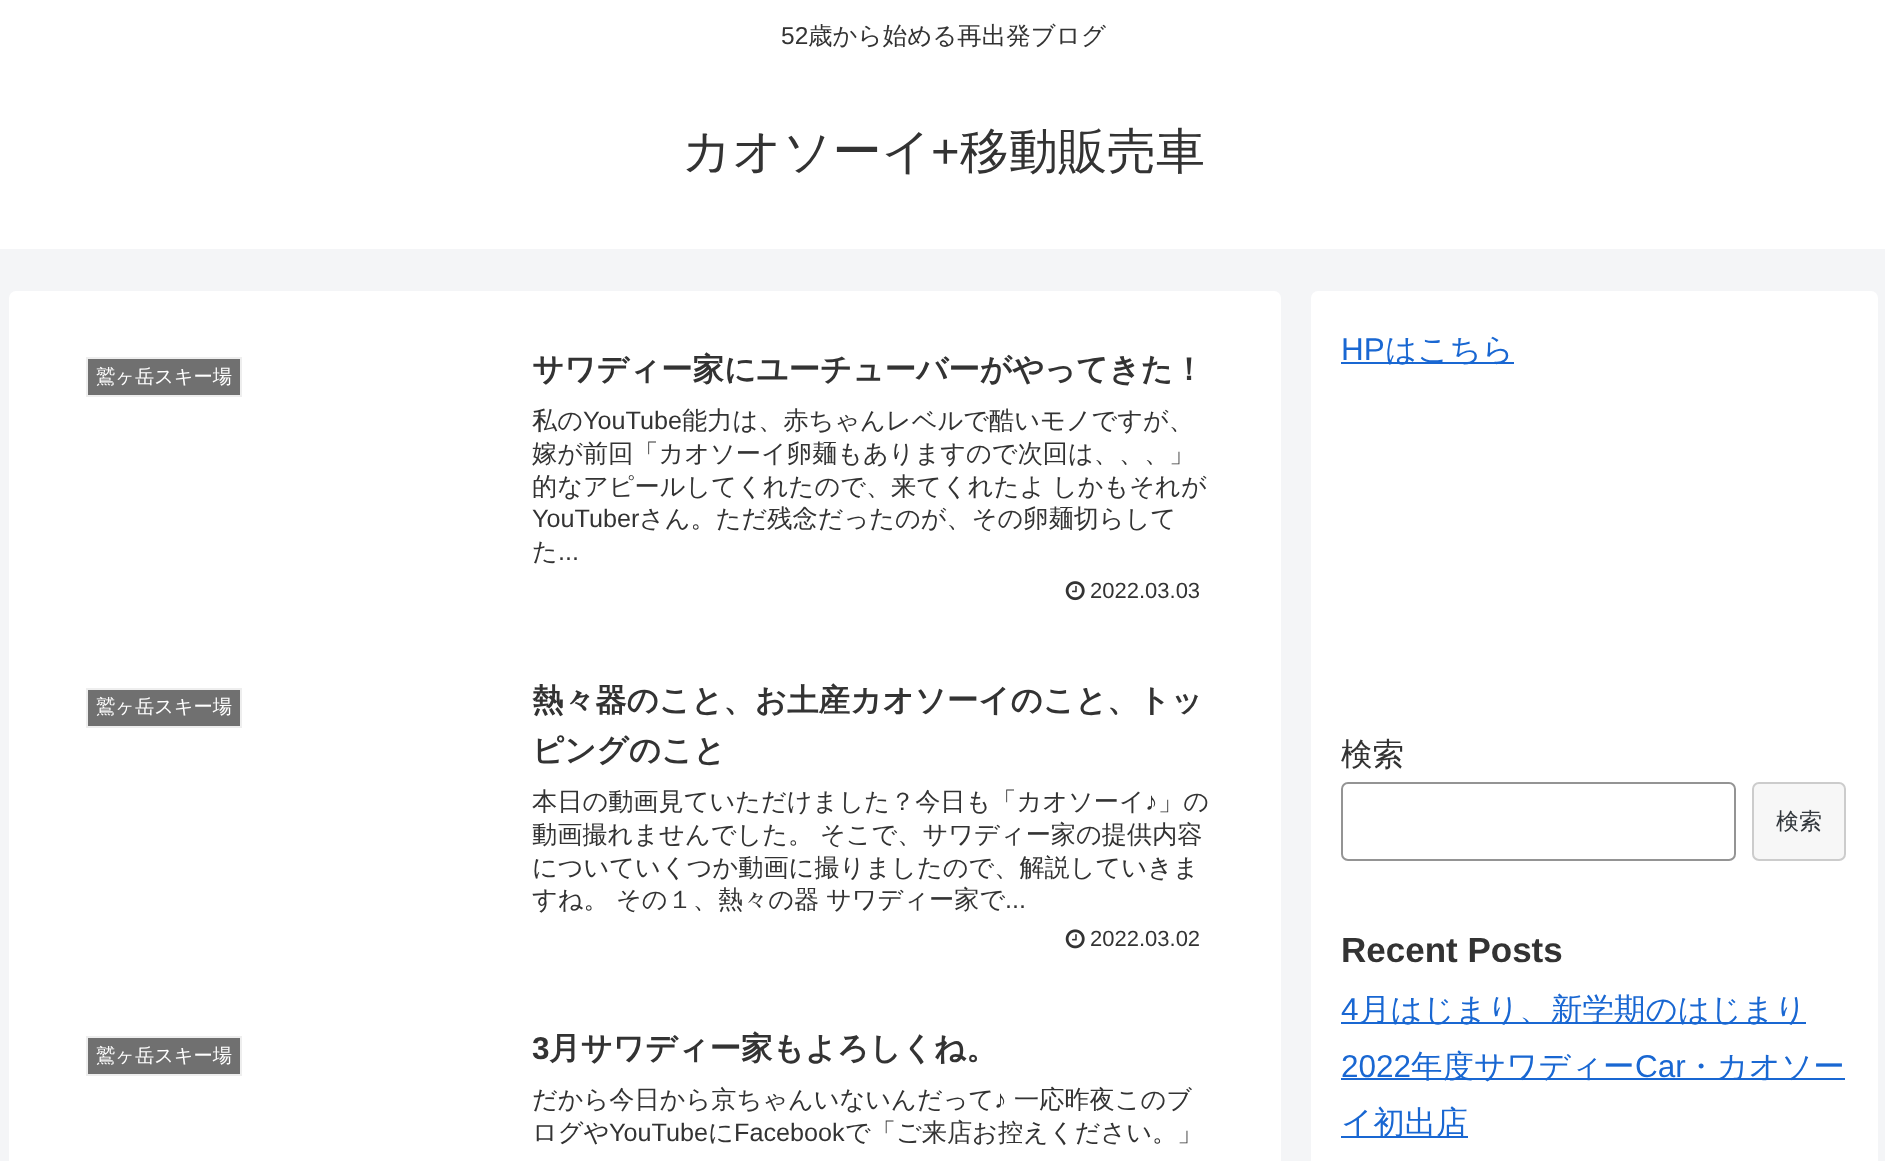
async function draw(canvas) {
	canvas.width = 1885;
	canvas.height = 1161;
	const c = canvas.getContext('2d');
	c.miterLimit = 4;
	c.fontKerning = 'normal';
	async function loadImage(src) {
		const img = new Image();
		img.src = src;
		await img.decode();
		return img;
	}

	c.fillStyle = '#f4f5f7';
	c.fillRect(0, 0, 1885, 1161);
	c.fillStyle = '#fff';
	c.fillRect(0, 0, 1885, 249);
	c.font = '24.5px Liberation Sans';
	c.fillStyle = '#333';
	c.fillText('52', 781, 44);
	c.font = '500 24.5px WenQuanYi Zen Hei';
	c.fillText('歳から始める再出発ブログ', 808, 44);
	c.font = '500 49px WenQuanYi Zen Hei';
	c.fillText('カオソーイ', 682, 168);
	c.font = '49px Liberation Sans';
	c.fillText('+', 931, 168);
	c.font = '500 49px WenQuanYi Zen Hei';
	c.fillText('移動販売車', 960, 168);
	c.fillStyle = '#fff';
	c.beginPath();
	c.roundRect(9, 291, 1272, 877, 7);
	c.fill();
	c.fillStyle = '#707070';
	c.beginPath();
	c.rect(87, 358, 154, 38);
	c.fill();
	c.strokeStyle = '#eee';
	c.lineWidth = 2;
	c.stroke();
	c.font = '500 19.25px WenQuanYi Zen Hei';
	c.fillStyle = '#fff';
	c.fillText('鷲ヶ岳スキー場', 96, 383);
	c.font = 'bold 31.5px WenQuanYi Zen Hei';
	c.fillStyle = '#333';
	c.fillText('サワディー家にユーチューバーがやってきた！', 532, 380);
	c.font = '500 25.2px WenQuanYi Zen Hei';
	c.fillText('私の', 532, 429);
	c.font = '25.2px Liberation Sans';
	c.fillText('YouTube', 583, 429);
	c.font = '500 25.2px WenQuanYi Zen Hei';
	for (const [text, x, y] of [
		['能力は、赤ちゃんレベルで酷いモノですが、', 682, 429],
		['嫁が前回「カオソーイ卵麺もありますので次回は、、、」', 532, 462],
		['的なアピールしてくれたので、来てくれたよ', 532, 495],
		['しかもそれが', 1052, 495],
	]) {
		c.fillText(text, x, y);
	}
	c.font = '25.2px Liberation Sans';
	c.fillText('YouTuber', 532, 527);
	c.font = '500 25.2px WenQuanYi Zen Hei';
	c.fillText('さん。ただ残念だったのが、その卵麺切らして', 639, 527);
	c.fillText('た', 532, 560);
	c.font = '25.2px Liberation Sans';
	c.fillText('...', 558, 560);
	c.drawImage(await loadImage('img1.png'), 1065, 581, 20, 20);
	c.font = '22px Liberation Sans';
	c.fillText('2022.03.03', 1090, 598);
	c.fillStyle = '#707070';
	c.beginPath();
	c.rect(87, 689, 154, 38);
	c.fill();
	c.stroke();
	c.font = '500 19.25px WenQuanYi Zen Hei';
	c.fillStyle = '#fff';
	c.fillText('鷲ヶ岳スキー場', 96, 713);
	c.font = 'bold 31.5px WenQuanYi Zen Hei';
	c.fillStyle = '#333';
	c.fillText('熱々器のこと、お土産カオソーイのこと、トッ', 532, 711);
	c.fillText('ピングのこと', 532, 761);
	c.font = '500 25.2px WenQuanYi Zen Hei';
	c.fillText('本日の動画見ていただけました？今日も「カオソーイ', 532, 810);
	c.font = '25.2px Liberation Sans';
	c.fillText('♪', 1145, 810);
	c.font = '500 25.2px WenQuanYi Zen Hei';
	for (const [text, x, y] of [
		['」の', 1158, 810],
		['動画撮れませんでした。', 532, 843],
		['そこで、サワディー家の提供内容', 820, 843],
		['についていくつか動画に撮りましたので、解説していきま', 532, 876],
		['すね。', 532, 908],
		['その１、熱々の器', 616, 908],
		['サワディー家で', 826, 908],
	]) {
		c.fillText(text, x, y);
	}
	c.font = '25.2px Liberation Sans';
	c.fillText('...', 1005, 908);
	c.drawImage(await loadImage('img2.png'), 1065, 929, 20, 20);
	c.font = '22px Liberation Sans';
	c.fillText('2022.03.02', 1090, 946);
	c.fillStyle = '#707070';
	c.beginPath();
	c.rect(87, 1037, 154, 38);
	c.fill();
	c.stroke();
	c.font = '500 19.25px WenQuanYi Zen Hei';
	c.fillStyle = '#fff';
	c.fillText('鷲ヶ岳スキー場', 96, 1062);
	c.font = 'bold 31.5px Liberation Sans';
	c.fillStyle = '#333';
	c.fillText('3', 532, 1059);
	c.font = 'bold 31.5px WenQuanYi Zen Hei';
	c.fillText('月サワディー家もよろしくね。', 549, 1059);
	c.font = '500 25.2px WenQuanYi Zen Hei';
	c.fillText('だから今日から京ちゃんいないんだって', 532, 1108);
	c.font = '25.2px Liberation Sans';
	c.fillText('♪', 994, 1108);
	c.font = '500 25.2px WenQuanYi Zen Hei';
	c.fillText('一応昨夜このブ', 1014, 1108);
	c.fillText('ログや', 532, 1141);
	c.font = '25.2px Liberation Sans';
	c.fillText('YouTube', 609, 1141);
	c.font = '500 25.2px WenQuanYi Zen Hei';
	c.fillText('に', 708, 1141);
	c.font = '25.2px Liberation Sans';
	c.fillText('Facebook', 734, 1141);
	c.font = '500 25.2px WenQuanYi Zen Hei';
	c.fillText('で「ご来店お控えください。」', 845, 1141);
	c.fillStyle = '#fff';
	c.beginPath();
	c.roundRect(1311, 291, 567, 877, 7);
	c.fill();
	c.font = '31.5px Liberation Sans';
	c.fillStyle = '#1967d2';
	c.fillText('HP', 1341, 360);
	c.fillRect(1341, 362, 173, 2);
	c.font = '500 31.5px WenQuanYi Zen Hei';
	c.fillText('はこちら', 1385, 360);
	c.fillStyle = '#333';
	c.fillText('検索', 1341, 765);
	c.beginPath();
	c.roundRect(1342, 783, 393, 77, 6);
	c.strokeStyle = '#949494';
	c.stroke();
	c.fillStyle = '#f7f7f7';
	c.beginPath();
	c.roundRect(1753, 783, 92, 77, 6);
	c.fill();
	c.strokeStyle = '#ccc';
	c.stroke();
	c.font = '500 23px WenQuanYi Zen Hei';
	c.fillStyle = '#32373c';
	c.fillText('検索', 1776, 829);
	c.font = 'bold 35px Liberation Sans';
	c.fillStyle = '#333';
	c.fillText('Recent Posts', 1341, 962);
	c.font = '31.5px Liberation Sans';
	c.fillStyle = '#1967d2';
	c.fillText('4', 1341, 1020);
	c.fillRect(1341, 1022, 465, 2);
	c.font = '500 31.5px WenQuanYi Zen Hei';
	c.fillText('月はじまり、新学期のはじまり', 1359, 1020);
	c.font = '31.5px Liberation Sans';
	c.fillText('2022', 1341, 1077);
	c.fillRect(1341, 1078, 504, 2);
	c.font = '500 31.5px WenQuanYi Zen Hei';
	c.fillText('年度サワディー', 1411, 1077);
	c.font = '31.5px Liberation Sans';
	c.fillText('Car', 1635, 1077);
	c.font = '500 31.5px WenQuanYi Zen Hei';
	c.fillText('・カオソー', 1685, 1077);
	c.fillRect(1341, 1136, 127, 2);
	c.fillText('イ初出店', 1341, 1133);
}

draw(document.querySelector('canvas'));
